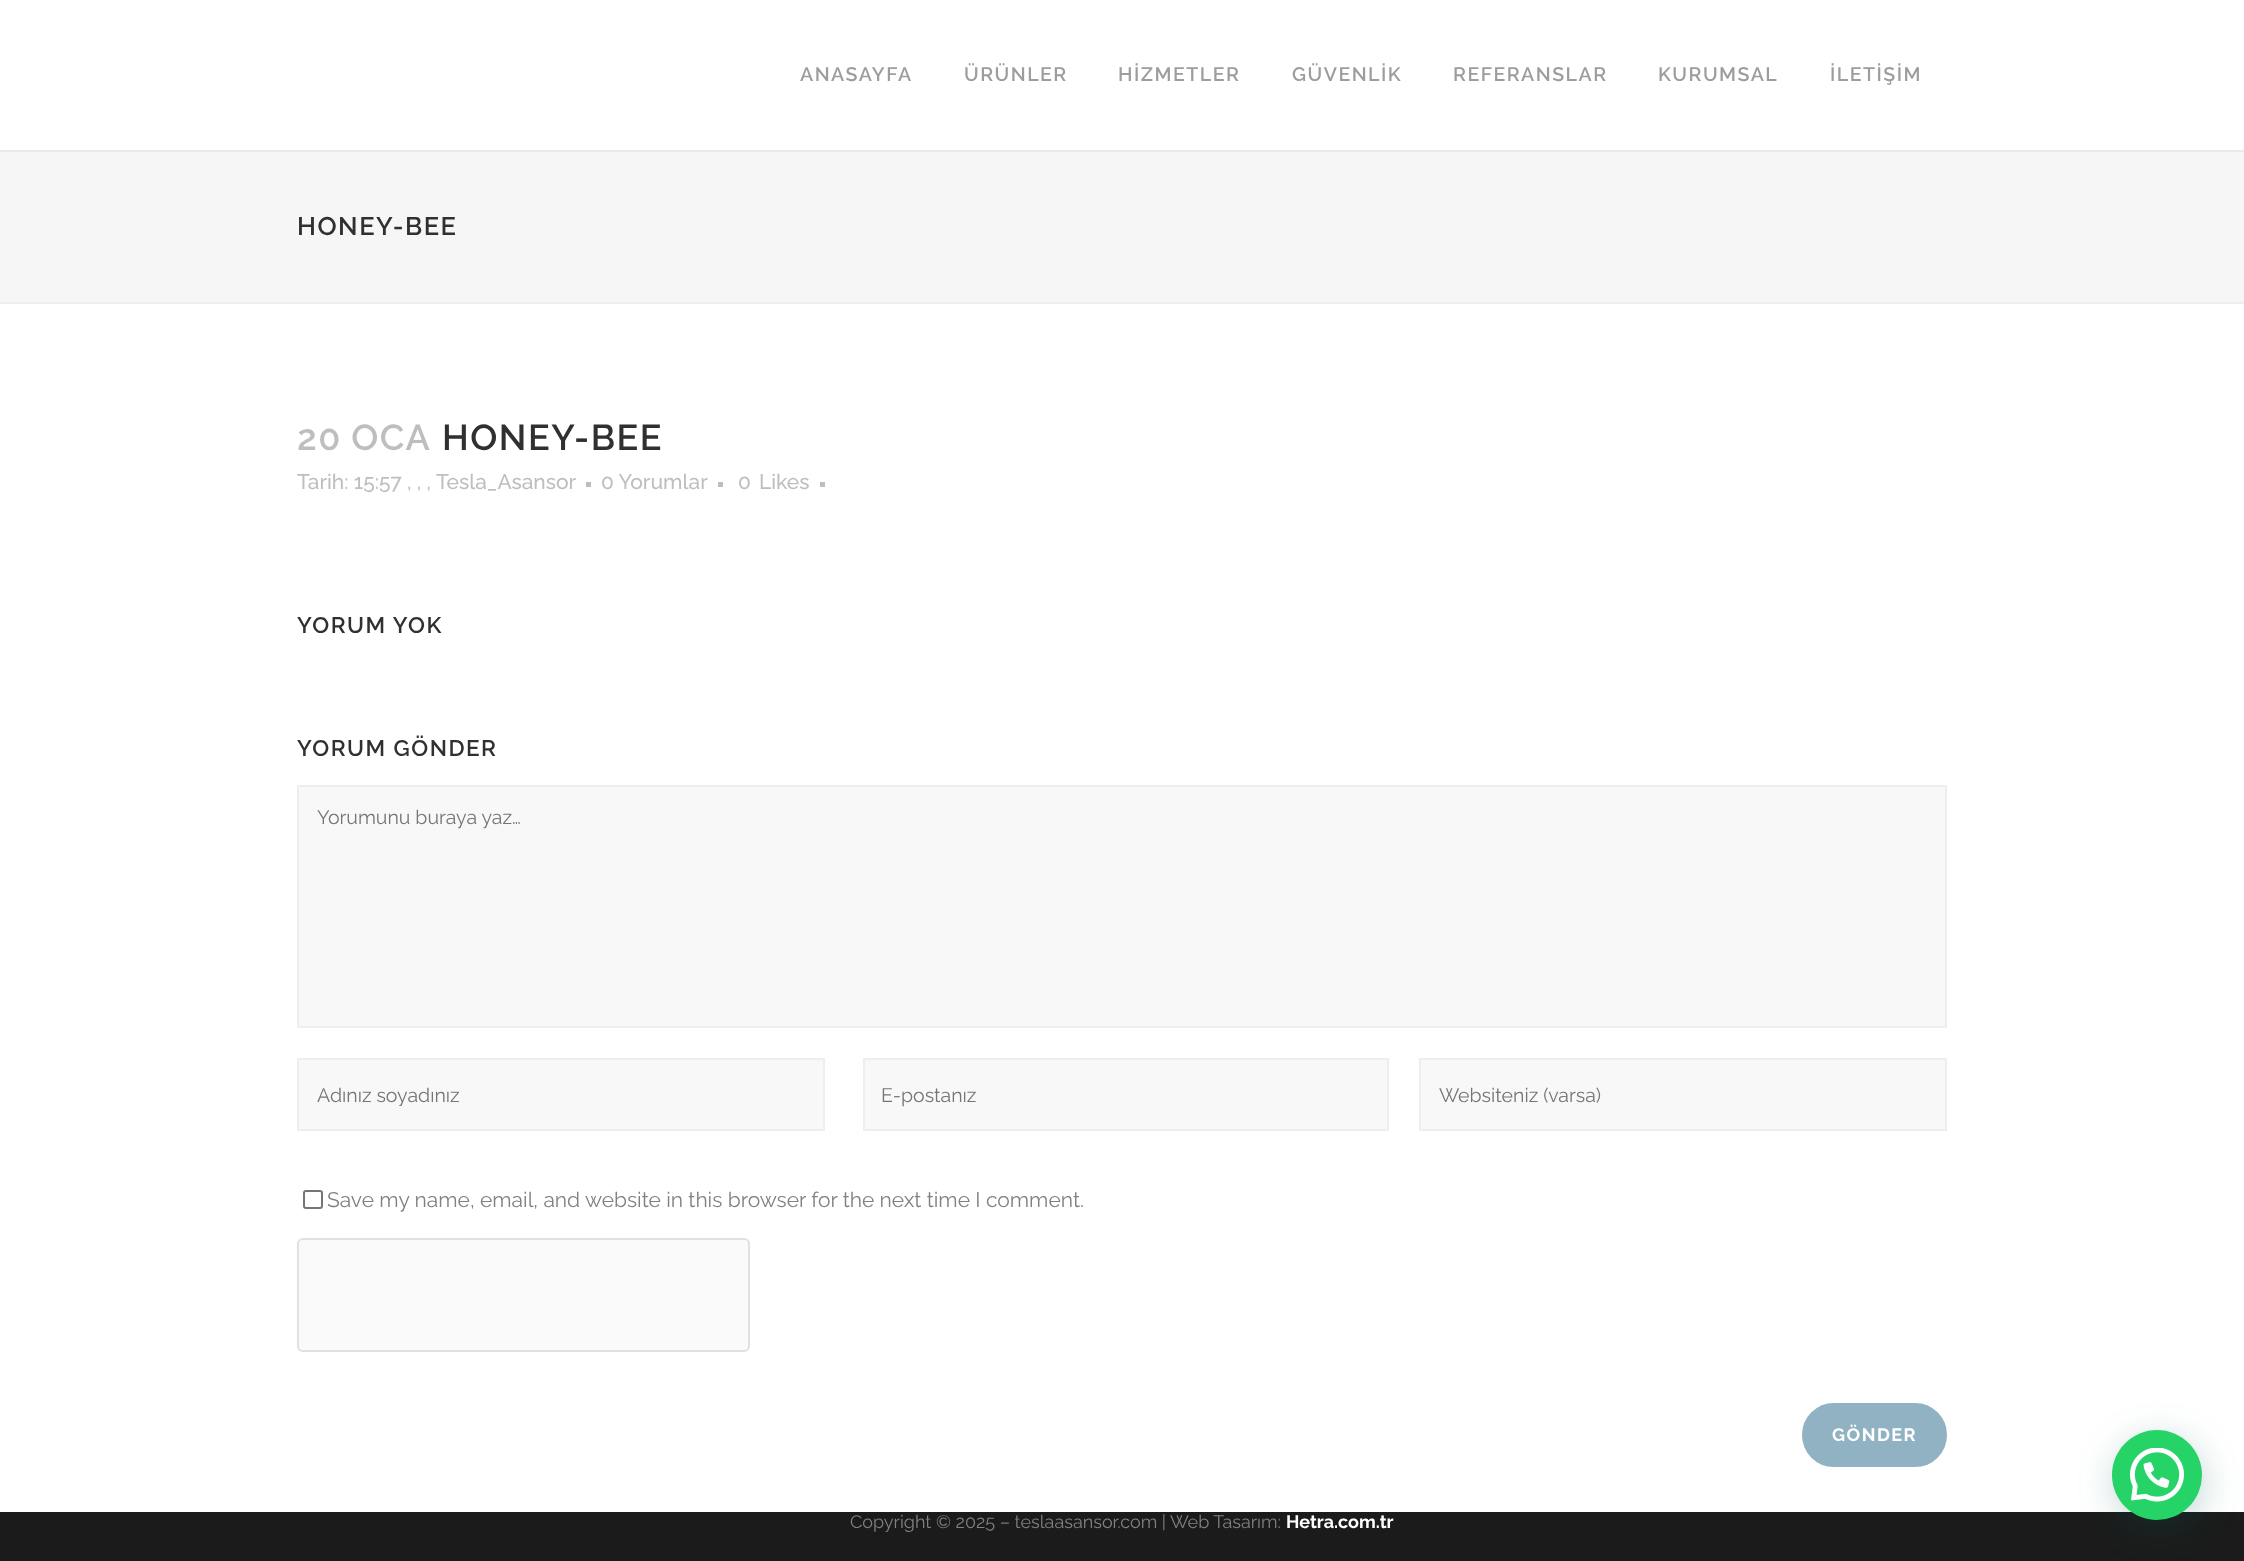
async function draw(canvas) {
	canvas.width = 2244;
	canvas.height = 1561;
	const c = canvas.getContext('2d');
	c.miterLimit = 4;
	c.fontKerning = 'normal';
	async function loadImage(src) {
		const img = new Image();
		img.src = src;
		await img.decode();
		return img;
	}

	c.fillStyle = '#1b1b1b';
	c.fillRect(0, 0, 2244, 1561);
	c.fillStyle = '#fff';
	c.fillRect(0, 0, 2244, 150);
	c.fillStyle = '#eaeaea';
	c.fillRect(0, 150, 2244, 2);
	c.letterSpacing = '1.5px';
	c.font = '600 19.5px Raleway';
	c.fillStyle = '#9d9d9d';
	for (const [text, x, y] of [
		['ANASAYFA', 800, 81],
		['ÜRÜNLER', 964, 81],
		['HİZMETLER', 1118, 81],
		['GÜVENLİK', 1292, 81],
		['REFERANSLAR', 1453, 81],
		['KURUMSAL', 1658, 81],
		['İLETİŞİM', 1830, 81],
	]) {
		c.fillText(text, x, y);
	}
	for (const [x, y, w, h, color] of [
		[0, 304, 2244, 1208, '#fff'],
		[0, 152, 2244, 150, '#f6f6f6'],
		[0, 302, 2244, 2, '#eee'],
	]) {
		c.fillStyle = color;
		c.fillRect(x, y, w, h);
	}
	c.font = '600 25.5px Raleway';
	c.fillStyle = '#303030';
	c.fillText('HONEY-BEE', 297, 235);
	c.wordSpacing = '-1px';
	c.font = '600 36px Raleway';
	c.fillStyle = '#bebebe';
	c.fillText('20 OCA', 297, 450);
	c.wordSpacing = '0px';
	c.fillStyle = '#303030';
	c.fillText('HONEY-BEE', 442, 450);
	c.letterSpacing = '0px';
	c.font = '500 21px Raleway';
	c.fillStyle = '#bebebe';
	c.fillText('Tarih: 15:57 , , ,', 297, 489);
	c.fillText('Tesla_Asansor', 436, 489);
	c.fillRect(586, 482, 5, 5);
	c.fillText('0 Yorumlar', 601, 489);
	c.fillRect(718, 482, 5, 5);
	c.fillText('0', 738, 489);
	c.fillText('Likes', 759, 489);
	c.fillRect(820, 482, 5, 5);
	c.letterSpacing = '1.5px';
	c.font = '600 22.5px Raleway';
	c.fillStyle = '#303030';
	c.fillText('YORUM YOK', 297, 633);
	c.fillText('YORUM GÖNDER', 297, 756);
	c.fillStyle = '#f8f8f8';
	c.beginPath();
	c.rect(298, 786, 1648, 241);
	c.fill();
	c.strokeStyle = '#eee';
	c.lineWidth = 2;
	c.stroke();
	c.letterSpacing = '0px';
	c.font = '19.5px Raleway';
	c.fillStyle = '#757575';
	c.fillText('Yorumunu buraya yaz…', 317, 824);
	c.fillStyle = '#f8f8f8';
	c.beginPath();
	c.rect(298, 1059, 526, 71);
	c.fill();
	c.stroke();
	c.save();
	c.beginPath();
	c.rect(317, 1083, 489, 23);
	c.clip();
	c.fillStyle = '#757575';
	c.fillText('Adınız soyadınız', 317, 1102);
	c.restore();
	c.beginPath();
	c.rect(864, 1059, 524, 71);
	c.fill();
	c.stroke();
	c.fillStyle = '#757575';
	c.fillText('E-postanız', 881, 1102);
	c.fillStyle = '#f8f8f8';
	c.beginPath();
	c.rect(1420, 1059, 526, 71);
	c.fill();
	c.stroke();
	c.fillStyle = '#757575';
	c.fillText('Websiteniz (varsa)', 1439, 1102);
	c.beginPath();
	c.roundRect(304, 1191, 18, 17, 2);
	c.strokeStyle = '#767676';
	c.stroke();
	c.font = '21px Raleway';
	c.fillStyle = '#818181';
	c.fillText('Save my name, email, and website in this browser for the next time I comment.', 327, 1207);
	c.fillStyle = '#fafafa';
	c.beginPath();
	c.roundRect(298, 1239, 451, 112, 5);
	c.fill();
	c.strokeStyle = '#e0e0e0';
	c.stroke();
	c.fillStyle = '#91b2c3';
	c.beginPath();
	c.roundRect(1803.5, 1404.5, 142, 61, 30.5);
	c.fill();
	c.strokeStyle = '#91b2c3';
	c.lineWidth = 3;
	c.stroke();
	c.letterSpacing = '1.5px';
	c.font = 'bold 18px Raleway';
	c.fillStyle = '#fff';
	c.fillText('GÖNDER', 1832, 1441);
	c.letterSpacing = '0px';
	c.font = '18px Raleway';
	c.fillStyle = '#818181';
	c.fillText('Copyright © 2025 – teslaasansor.com | Web Tasarım:', 850, 1528);
	c.font = 'bold 18px Raleway';
	c.fillStyle = '#fff';
	c.fillText('Hetra.com.tr', 1286, 1528);
	c.fillStyle = '#075e543d';
	c.filter = 'blur(18px)';
	c.beginPath();
	c.roundRect(2114, 1439, 90, 90, 45);
	c.fill();
	c.filter = 'none';
	c.fillStyle = '#25d366';
	c.beginPath();
	c.arc(2157, 1475, 45, 0, 2 * Math.PI);
	c.fill();
	c.drawImage(await loadImage('img1.png'), 2130, 1448, 54, 54);
}

draw(document.querySelector('canvas'));
